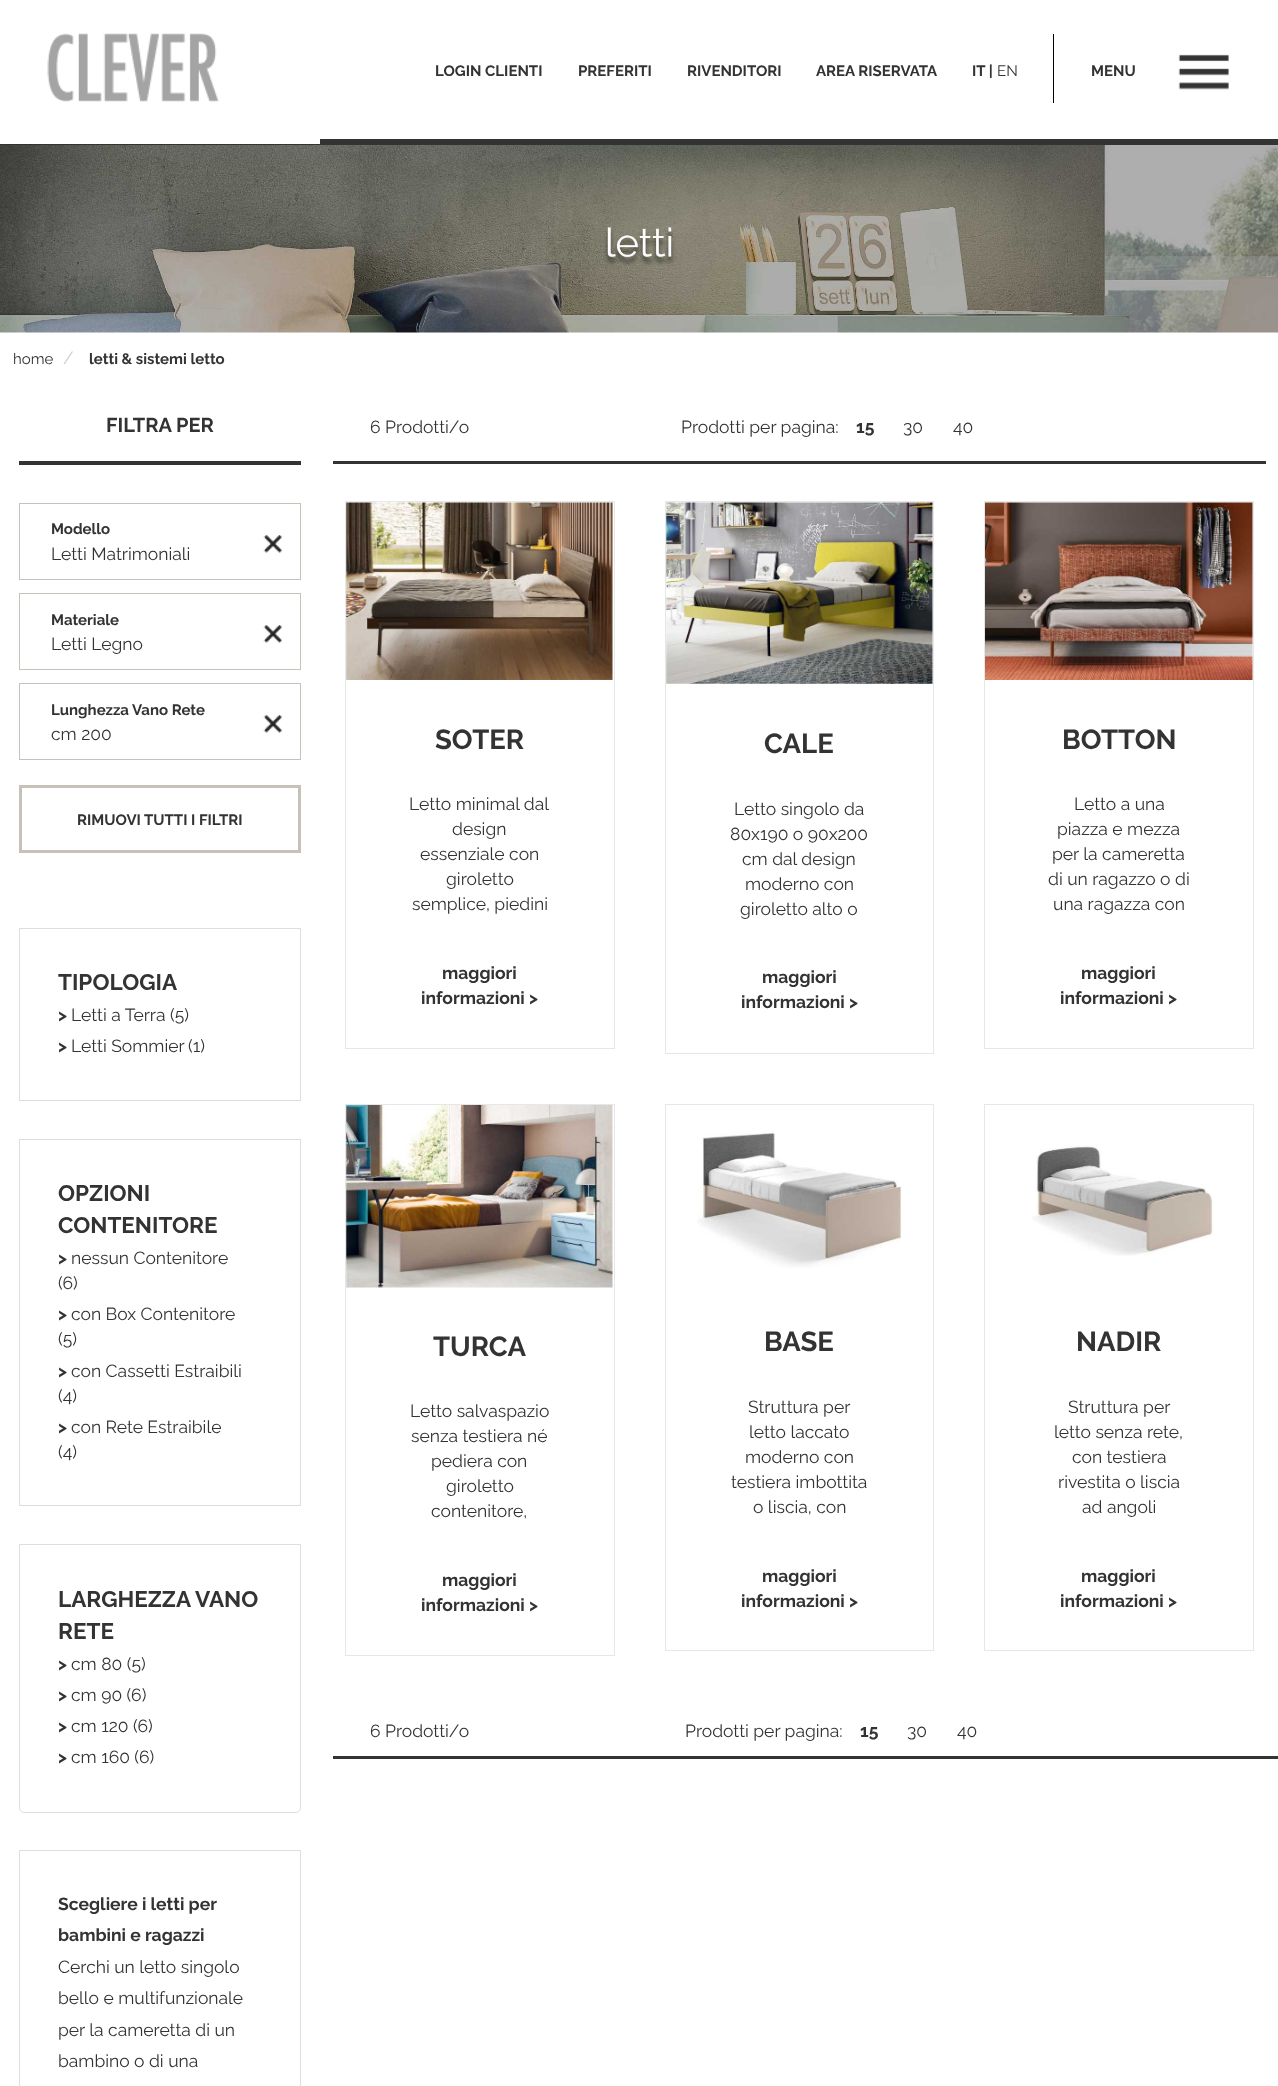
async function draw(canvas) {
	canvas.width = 1278;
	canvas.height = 2086;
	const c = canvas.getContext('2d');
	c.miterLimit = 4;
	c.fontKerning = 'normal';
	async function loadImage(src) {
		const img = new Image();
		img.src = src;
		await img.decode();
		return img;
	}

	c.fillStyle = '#fff';
	c.fillRect(0, 0, 1278, 2086);
	c.drawImage(await loadImage('img1.png'), 47, 33, 172, 69);
	c.font = 'bold 15px Raleway';
	c.fillStyle = '#333';
	for (const [text, x, y] of [
		['LOGIN CLIENTI', 435, 76],
		['PREFERITI', 578, 76],
		['RIVENDITORI', 687, 76],
		['AREA RISERVATA', 816, 76],
		['IT |', 972, 76],
	]) {
		c.fillText(text, x, y);
	}
	c.font = '15px Raleway';
	c.fillText('EN', 997, 76);
	c.fillStyle = '#000';
	c.fillRect(1053, 34, 1, 69);
	c.font = 'bold 15px Raleway';
	c.fillStyle = '#333';
	c.fillText('MENU', 1091, 76);
	c.drawImage(await loadImage('img2.png'), 1178, 54, 51, 36);
	c.fillRect(0, 144, 320, 1);
	c.fillRect(320, 139, 958, 6);
	c.drawImage(await loadImage('img3.png'), 0, 145, 1278, 188);
	c.font = '15px Raleway';
	c.fillText('home', 13, 364);
	c.font = '17.5px Raleway';
	c.fillStyle = '#ccc';
	c.fillText('/', 63, 364);
	c.font = 'bold 15px Raleway';
	c.fillStyle = '#333';
	c.fillText('letti & sistemi letto', 89, 364);
	c.fillRect(19, 461, 282, 4);
	c.font = 'bold 20px Raleway';
	c.fillText('FILTRA PER', 106, 432);
	c.strokeStyle = '#c7c1b9';
	c.strokeRect(19.5, 503.5, 281, 76);
	c.font = 'bold 15px Raleway';
	c.fillText('Modello', 51, 534);
	c.font = '17.5px Raleway';
	c.fillText('Letti Matrimoniali', 51, 560);
	c.drawImage(await loadImage('img4.png'), 263, 535, 20, 18);
	c.strokeRect(19.5, 593.5, 281, 76);
	c.font = 'bold 15px Raleway';
	c.fillText('Materiale', 51, 625);
	c.font = '17.5px Raleway';
	c.fillText('Letti Legno', 51, 650);
	c.drawImage(await loadImage('img4.png'), 263, 625, 20, 18);
	c.strokeRect(19.5, 683.5, 281, 76);
	c.font = 'bold 15px Raleway';
	c.fillText('Lunghezza Vano Rete', 51, 715);
	c.font = '17.5px Raleway';
	c.fillText('cm 200', 51, 740);
	c.drawImage(await loadImage('img4.png'), 263, 715, 20, 18);
	c.lineWidth = 3;
	c.strokeRect(20.5, 786.5, 279, 65);
	c.font = 'bold 15px Raleway';
	c.fillText('RIMUOVI TUTTI I FILTRI', 77, 825);
	c.strokeStyle = '#e0dedc';
	c.lineWidth = 1;
	c.strokeRect(19.5, 928.5, 281, 172);
	c.font = 'bold 22.5px Raleway';
	c.fillText('TIPOLOGIA', 58, 990);
	c.font = 'bold 17.5px Raleway';
	c.fillText('>', 58, 1021);
	c.font = '17.5px Raleway';
	c.fillText('Letti a Terra (5)', 71, 1021);
	c.font = 'bold 17.5px Raleway';
	c.fillText('>', 58, 1052);
	c.font = '17.5px Raleway';
	c.fillText('Letti Sommier', 71, 1052);
	c.fillText('(1)', 188, 1052);
	c.strokeRect(19.5, 1139.5, 281, 366);
	c.font = 'bold 22.5px Raleway';
	c.fillText('OPZIONI', 58, 1201);
	c.fillText('CONTENITORE', 58, 1233);
	c.font = 'bold 17.5px Raleway';
	c.fillText('>', 58, 1264);
	c.font = '17.5px Raleway';
	c.fillText('nessun Contenitore', 71, 1264);
	c.fillText('(6)', 58, 1289);
	c.font = 'bold 17.5px Raleway';
	c.fillText('>', 58, 1320);
	c.font = '17.5px Raleway';
	c.fillText('con Box Contenitore', 71, 1320);
	c.fillText('(5)', 58, 1345);
	c.font = 'bold 17.5px Raleway';
	c.fillText('>', 58, 1377);
	c.font = '17.5px Raleway';
	c.fillText('con Cassetti Estraibili', 71, 1377);
	c.fillText('(4)', 58, 1402);
	c.font = 'bold 17.5px Raleway';
	c.fillText('>', 58, 1433);
	c.font = '17.5px Raleway';
	c.fillText('con Rete Estraibile', 71, 1433);
	c.fillText('(4)', 58, 1458);
	c.beginPath();
	c.roundRect(19.5, 1544.5, 281, 268, [0, 0, 4.5, 4.5]);
	c.stroke();
	c.font = 'bold 22.5px Raleway';
	c.fillText('LARGHEZZA VANO', 58, 1607);
	c.fillText('RETE', 58, 1639);
	c.font = 'bold 17.5px Raleway';
	c.fillText('>', 58, 1670);
	c.font = '17.5px Raleway';
	c.fillText('cm 80 (5)', 71, 1670);
	c.font = 'bold 17.5px Raleway';
	c.fillText('>', 58, 1701);
	c.font = '17.5px Raleway';
	c.fillText('cm 90 (6)', 71, 1701);
	c.font = 'bold 17.5px Raleway';
	c.fillText('>', 58, 1732);
	c.font = '17.5px Raleway';
	c.fillText('cm 120 (6)', 71, 1732);
	c.font = 'bold 17.5px Raleway';
	c.fillText('>', 58, 1763);
	c.font = '17.5px Raleway';
	c.fillText('cm 160 (6)', 71, 1763);
	c.strokeRect(19.5, 1850.5, 281, 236);
	c.font = 'bold 17.5px Raleway';
	c.fillText('Scegliere i letti per', 58, 1910);
	c.fillText('bambini e ragazzi', 58, 1941);
	c.font = '17.5px Raleway';
	for (const [text, x, y] of [
		['Cerchi un letto singolo', 58, 1973],
		['bello e multifunzionale', 58, 2004],
		['per la cameretta di un', 58, 2036],
		['bambino o di una', 58, 2067],
	]) {
		c.fillText(text, x, y);
	}
	c.fillRect(333, 461, 933, 3);
	c.fillText('6 Prodotti/o', 370, 433);
	c.fillText('Prodotti per pagina:', 681, 433);
	c.font = 'bold 17.5px Raleway';
	c.fillText('15', 856, 433);
	c.font = '17.5px Raleway';
	c.fillText('30', 903, 433);
	c.fillText('40', 953, 433);
	c.strokeStyle = '#e6e7e8';
	c.strokeRect(345.5, 501.5, 269, 547);
	c.drawImage(await loadImage('img5.png'), 346, 502, 267, 178);
	c.font = 'bold 27.5px Raleway';
	c.fillText('SOTER', 435, 749);
	c.font = '17.5px Raleway';
	for (const [text, x, y] of [
		['Letto minimal dal', 409, 810],
		['design', 452, 835],
		['essenziale con', 420, 860],
		['giroletto', 446, 885],
		['semplice, piedini', 412, 910],
	]) {
		c.fillText(text, x, y);
	}
	c.font = 'bold 17.5px Raleway';
	c.fillText('maggiori', 442, 979);
	c.fillText('informazioni >', 421, 1004);
	c.strokeRect(665.5, 501.5, 268, 552);
	c.drawImage(await loadImage('img6.png'), 666, 502, 267, 182);
	c.font = 'bold 27.5px Raleway';
	c.fillText('CALE', 764, 753);
	c.font = '17.5px Raleway';
	for (const [text, x, y] of [
		['Letto singolo da', 734, 815],
		['80x190 o 90x200', 730, 840],
		['cm dal design', 742, 865],
		['moderno con', 745, 890],
		['giroletto alto o', 740, 915],
	]) {
		c.fillText(text, x, y);
	}
	c.font = 'bold 17.5px Raleway';
	c.fillText('maggiori', 762, 983);
	c.fillText('informazioni >', 741, 1008);
	c.strokeRect(984.5, 501.5, 269, 547);
	c.drawImage(await loadImage('img7.png'), 985, 502, 268, 178);
	c.font = 'bold 27.5px Raleway';
	c.fillText('BOTTON', 1062, 749);
	c.font = '17.5px Raleway';
	for (const [text, x, y] of [
		['Letto a una', 1074, 810],
		['piazza e mezza', 1057, 835],
		['per la cameretta', 1052, 860],
		['di un ragazzo o di', 1048, 885],
		['una ragazza con', 1053, 910],
	]) {
		c.fillText(text, x, y);
	}
	c.font = 'bold 17.5px Raleway';
	c.fillText('maggiori', 1081, 979);
	c.fillText('informazioni >', 1060, 1004);
	c.strokeRect(345.5, 1104.5, 269, 551);
	c.drawImage(await loadImage('img8.png'), 346, 1105, 267, 183);
	c.font = 'bold 27.5px Raleway';
	c.fillText('TURCA', 433, 1356);
	c.font = '17.5px Raleway';
	for (const [text, x, y] of [
		['Letto salvaspazio', 410, 1417],
		['senza testiera né', 411, 1442],
		['pediera con', 431, 1467],
		['giroletto', 446, 1492],
		['contenitore,', 431, 1517],
	]) {
		c.fillText(text, x, y);
	}
	c.font = 'bold 17.5px Raleway';
	c.fillText('maggiori', 442, 1586);
	c.fillText('informazioni >', 421, 1611);
	c.strokeRect(665.5, 1104.5, 268, 546);
	c.drawImage(await loadImage('img9.png'), 697, 1131, 205, 137);
	c.font = 'bold 27.5px Raleway';
	c.fillText('BASE', 764, 1351);
	c.font = '17.5px Raleway';
	for (const [text, x, y] of [
		['Struttura per', 748, 1413],
		['letto laccato', 749, 1438],
		['moderno con', 745, 1463],
		['testiera imbottita', 731, 1488],
		['o liscia, con', 753, 1513],
	]) {
		c.fillText(text, x, y);
	}
	c.font = 'bold 17.5px Raleway';
	c.fillText('maggiori', 762, 1582);
	c.fillText('informazioni >', 741, 1607);
	c.strokeRect(984.5, 1104.5, 269, 546);
	c.drawImage(await loadImage('img10.png'), 1032, 1145, 182, 111);
	c.font = 'bold 27.5px Raleway';
	c.fillText('NADIR', 1076, 1351);
	c.font = '17.5px Raleway';
	for (const [text, x, y] of [
		['Struttura per', 1068, 1413],
		['letto senza rete,', 1054, 1438],
		['con testiera', 1072, 1463],
		['rivestita o liscia', 1058, 1488],
		['ad angoli', 1082, 1513],
	]) {
		c.fillText(text, x, y);
	}
	c.font = 'bold 17.5px Raleway';
	c.fillText('maggiori', 1081, 1582);
	c.fillText('informazioni >', 1060, 1607);
	c.fillRect(333, 1756, 945, 3);
	c.font = '17.5px Raleway';
	c.fillText('6 Prodotti/o', 370, 1737);
	c.fillText('Prodotti per pagina:', 685, 1737);
	c.font = 'bold 17.5px Raleway';
	c.fillText('15', 860, 1737);
	c.font = '17.5px Raleway';
	c.fillText('30', 907, 1737);
	c.fillText('40', 957, 1737);
}

draw(document.querySelector('canvas'));
